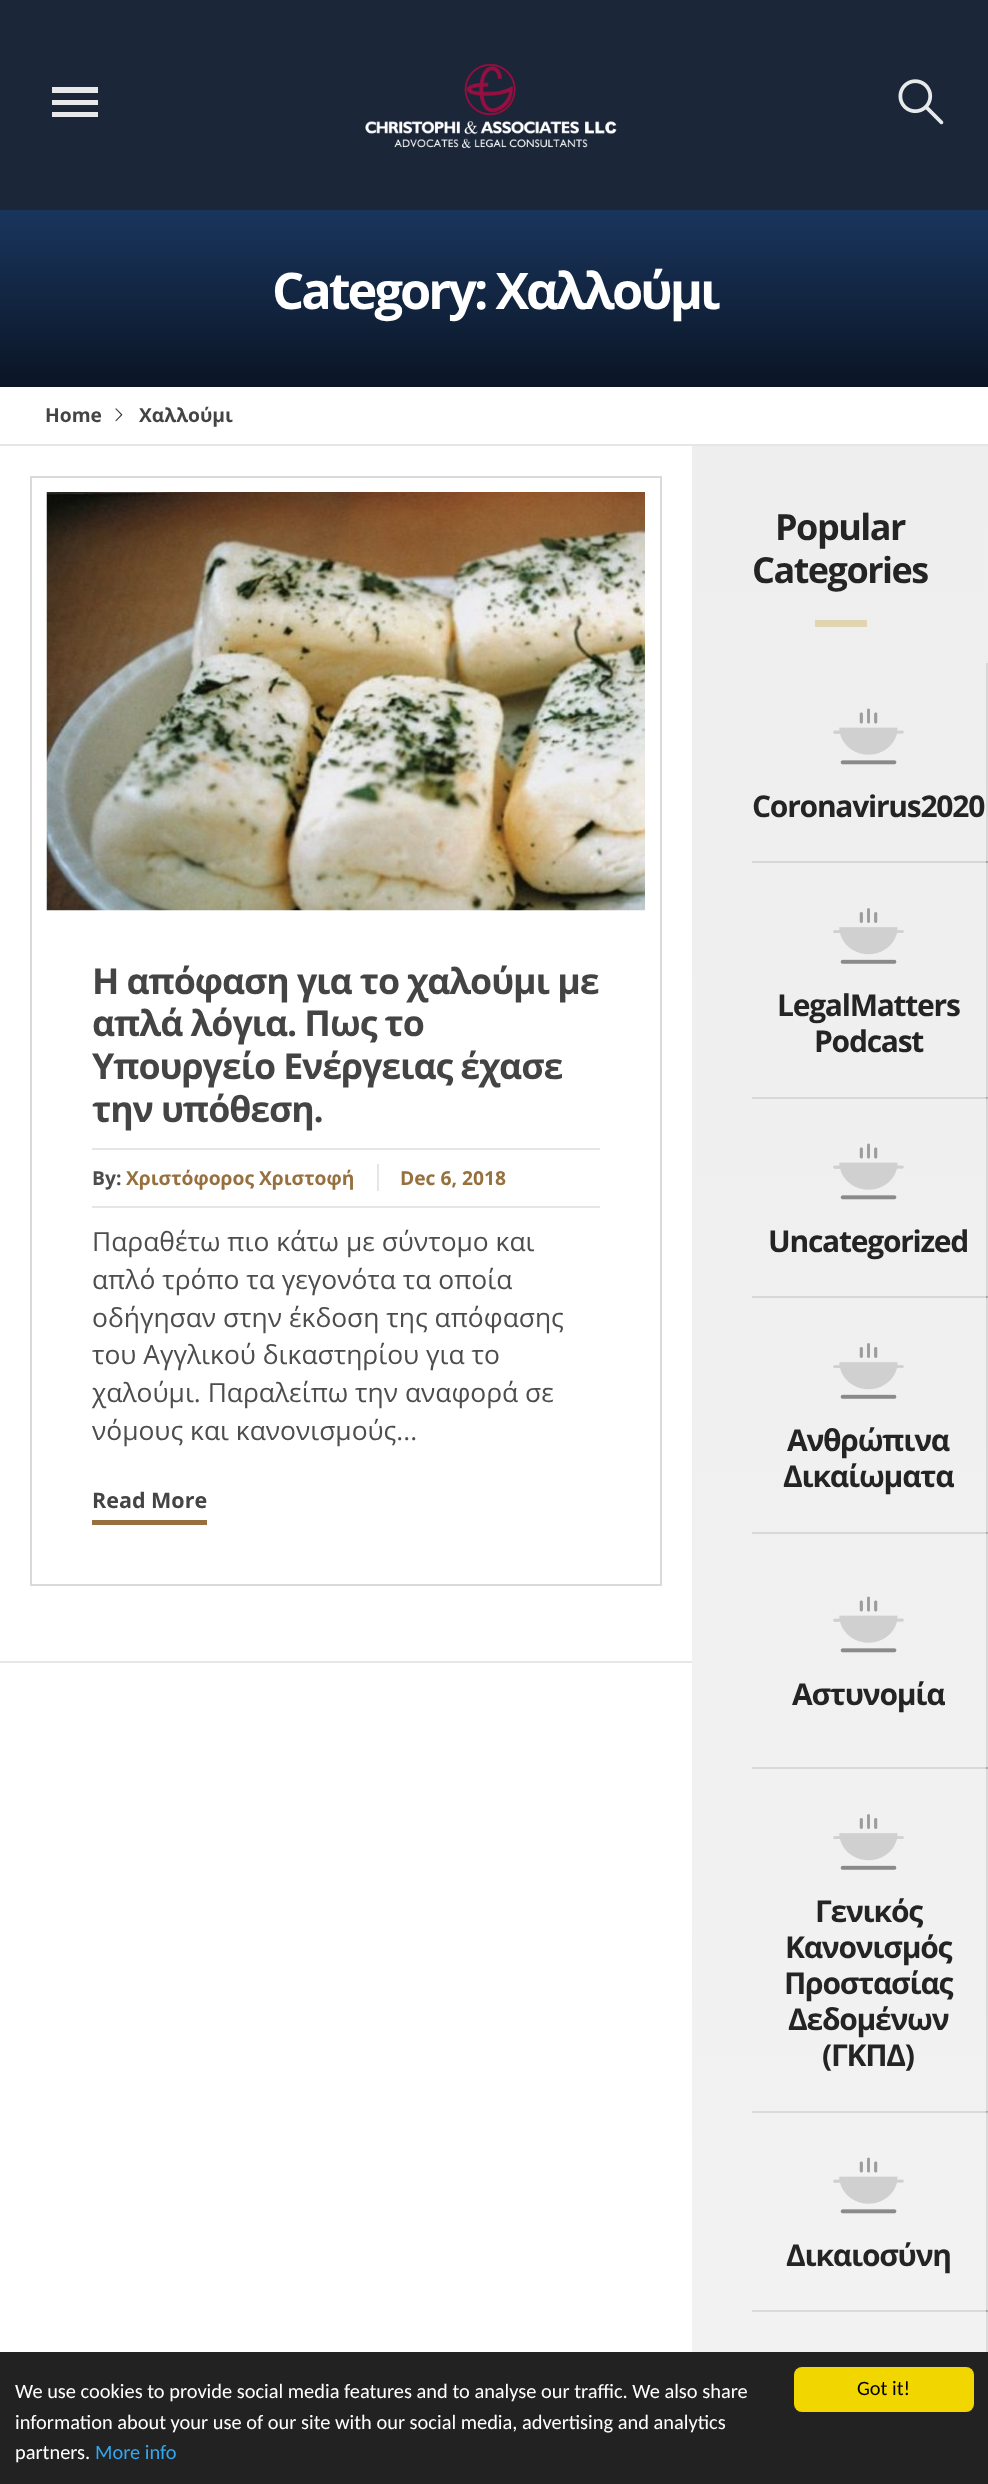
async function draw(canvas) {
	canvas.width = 988;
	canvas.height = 2484;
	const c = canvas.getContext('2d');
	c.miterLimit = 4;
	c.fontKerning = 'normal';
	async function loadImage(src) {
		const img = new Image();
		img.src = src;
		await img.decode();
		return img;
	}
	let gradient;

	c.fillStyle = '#fff';
	c.fillRect(0, 0, 988, 2484);
	c.fillStyle = '#1b2638';
	c.fillRect(0, 0, 988, 210);
	c.fillStyle = '#e8e9eb';
	c.beginPath();
	c.moveTo(52, 87);
	c.lineTo(98, 87);
	c.lineTo(98, 93);
	c.lineTo(52, 93);
	c.closePath();
	c.moveTo(52, 105);
	c.lineTo(52, 100);
	c.lineTo(98, 100);
	c.lineTo(98, 105);
	c.closePath();
	c.moveTo(52, 117);
	c.lineTo(52, 112);
	c.lineTo(98, 112);
	c.lineTo(98, 117);
	c.closePath();
	c.fill();
	c.drawImage(await loadImage('img1.png'), 365, 63, 252, 85);
	c.drawImage(await loadImage('img2.png'), 898, 79, 46, 46);
	gradient = c.createLinearGradient(494, 210, 494, 387);
	gradient.addColorStop(0, '#19355d');
	gradient.addColorStop(0.5, '#122541');
	gradient.addColorStop(1, '#0a1525');
	c.fillStyle = gradient;
	c.fillRect(0, 210, 988, 177);
	c.letterSpacing = '-3px';
	c.font = 'bold 50.5px Open Sans';
	c.fillStyle = '#fff';
	c.fillText('Category: Χαλλούμι', 272, 309);
	c.fillStyle = '#e6e6e6';
	c.fillRect(0, 444, 988, 2);
	c.letterSpacing = '0px';
	c.font = 'bold 19.25px Open Sans';
	c.fillStyle = '#444';
	c.fillText('Home', 45, 422);
	c.drawImage(await loadImage('img3.png'), 115, 408, 8, 14);
	c.fillText('Χαλλούμι', 139, 422);
	gradient = c.createLinearGradient(494, 446, 494, 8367);
	gradient.addColorStop(0, '#eee');
	gradient.addColorStop(1, '#fff');
	c.fillStyle = gradient;
	c.fillRect(692, 446, 296, 1906);
	gradient = c.createLinearGradient(494, 446, 494, 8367);
	gradient.addColorStop(0, '#d6d6d6');
	gradient.addColorStop(1, '#e6e6e6');
	c.fillStyle = gradient;
	c.fillRect(752, 861, 235, 2);
	c.fillRect(986, 663, 2, 200);
	c.fillRect(752, 1097, 235, 2);
	c.fillRect(986, 861, 2, 237);
	c.fillRect(752, 1296, 235, 2);
	c.fillRect(986, 1097, 2, 201);
	c.fillRect(752, 1532, 235, 2);
	c.fillRect(986, 1296, 2, 237);
	c.fillRect(752, 1767, 235, 2);
	c.fillRect(986, 1532, 2, 237);
	c.fillRect(752, 2111, 235, 2);
	c.fillRect(986, 1767, 2, 345);
	c.fillRect(752, 2310, 235, 2);
	c.fillRect(986, 2111, 2, 201);
	c.strokeStyle = '#dadada';
	c.lineWidth = 2;
	c.strokeRect(31, 477, 630, 1108);
	c.drawImage(await loadImage('img4.png'), 46, 492, 599, 419);
	c.letterSpacing = '-1.1px';
	c.font = 'bold 35.75px Open Sans';
	c.fillStyle = '#444';
	for (const [text, x, y] of [
		['Η απόφαση για το χαλούμι με', 92, 994],
		['απλά λόγια. Πως το', 92, 1036],
		['Υπουργείο Ενέργειας έχασε', 92, 1079],
		['την υπόθεση.', 92, 1122],
	]) {
		c.fillText(text, x, y);
	}
	c.fillStyle = '#e6e6e6';
	c.fillRect(92, 1148, 508, 2);
	c.fillRect(92, 1206, 508, 2);
	c.letterSpacing = '0px';
	c.font = 'bold 19.25px Open Sans';
	c.fillStyle = '#4d4d4d';
	c.fillText('By:', 92, 1185);
	c.fillStyle = '#96713f';
	c.fillText('Χριστόφορος Χριστοφή', 126, 1185);
	c.fillStyle = '#e6e6e6';
	c.fillRect(377, 1164, 2, 27);
	c.fillStyle = '#96713f';
	c.fillText('Dec 6, 2018', 400, 1185);
	c.font = '26.4px Open Sans';
	c.fillStyle = '#4d4d4d';
	for (const [text, x, y] of [
		['Παραθέτω πιο κάτω με σύντομο και', 92, 1251],
		['απλό τρόπο τα γεγονότα τα οποία', 92, 1289],
		['οδήγησαν στην έκδοση της απόφασης', 92, 1327],
		['του Αγγλικού δικαστηρίου για το', 92, 1364],
		['χαλούμι. Παραλείπω την αναφορά σε', 92, 1402],
		['νόμους και κανονισμούς...', 92, 1440],
	]) {
		c.fillText(text, x, y);
	}
	c.fillStyle = '#96713f';
	c.fillRect(92, 1520, 115, 5);
	c.font = 'bold 21.5px Open Sans';
	c.fillStyle = '#444';
	c.fillText('Read More', 92, 1508);
	c.fillStyle = '#e6e6e6';
	c.fillRect(0, 1661, 692, 2);
	c.letterSpacing = '-1.5px';
	c.font = 'bold 36px Open Sans';
	c.fillStyle = '#242424';
	c.fillText('Popular', 775, 540);
	c.fillText('Categories', 752, 583);
	c.fillStyle = '#e0d5af';
	c.fillRect(815, 620, 52, 7);
	c.drawImage(await loadImage('img5.png'), 833, 708, 71, 57);
	c.letterSpacing = '-1.25px';
	c.font = 'bold 30px Open Sans';
	c.fillStyle = '#242424';
	c.fillText('Coronavirus2020', 752, 817);
	c.fillStyle = '#afafaf';
	c.fillRect(986, 861, 2, 2);
	c.fillStyle = '#9e9e9e';
	c.fillRect(986, 861, 1, 2);
	c.drawImage(await loadImage('img6.png'), 833, 908, 71, 56);
	c.fillStyle = '#242424';
	c.fillText('LegalMatters', 777, 1016);
	c.fillText('Podcast', 814, 1052);
	for (const [x, y, w, h, color] of [
		[986, 1098, 2, 1, '#c2c2c2'],
		[986, 1097, 1, 2, '#afafaf'],
		[986, 1097, 2, 1, '#afafaf'],
		[986, 1097, 1, 1, '#9e9e9e'],
	]) {
		c.fillStyle = color;
		c.fillRect(x, y, w, h);
	}
	c.drawImage(await loadImage('img7.png'), 833, 1143, 71, 57);
	c.fillStyle = '#242424';
	c.fillText('Uncategorized', 768, 1252);
	c.fillStyle = '#afafaf';
	c.fillRect(986, 1296, 2, 2);
	c.fillStyle = '#9e9e9e';
	c.fillRect(986, 1296, 1, 2);
	c.drawImage(await loadImage('img8.png'), 833, 1343, 71, 56);
	c.fillStyle = '#242424';
	c.fillText('Ανθρώπινα', 787, 1451);
	c.fillText('Δικαίωματα', 783, 1487);
	for (const [x, y, w, h, color] of [
		[986, 1533, 2, 1, '#c2c2c2'],
		[986, 1532, 1, 2, '#afafaf'],
		[986, 1532, 2, 1, '#afafaf'],
		[986, 1532, 1, 1, '#9e9e9e'],
	]) {
		c.fillStyle = color;
		c.fillRect(x, y, w, h);
	}
	c.drawImage(await loadImage('img9.png'), 833, 1596, 71, 57);
	c.fillStyle = '#242424';
	c.fillText('Αστυνομία', 792, 1705);
	c.fillStyle = '#b0b0b0';
	c.fillRect(986, 1767, 2, 2);
	c.fillStyle = '#9e9e9e';
	c.fillRect(986, 1767, 1, 2);
	c.drawImage(await loadImage('img10.png'), 833, 1814, 71, 56);
	c.fillStyle = '#242424';
	for (const [text, x, y] of [
		['Γενικός', 815, 1922],
		['Κανονισμός', 785, 1958],
		['Προστασίας', 784, 1994],
		['Δεδομένων', 788, 2030],
		['(ΓΚΠΔ)', 822, 2066],
	]) {
		c.fillText(text, x, y);
	}
	for (const [x, y, w, h, color] of [
		[986, 2112, 2, 1, '#c4c4c4'],
		[986, 2111, 1, 2, '#b0b0b0'],
		[986, 2111, 2, 1, '#b0b0b0'],
		[986, 2111, 1, 1, '#9e9e9e'],
	]) {
		c.fillStyle = color;
		c.fillRect(x, y, w, h);
	}
	c.drawImage(await loadImage('img11.png'), 833, 2157, 71, 57);
	c.fillStyle = '#242424';
	c.fillText('Δικαιοσύνη', 786, 2266);
	for (const [x, y, w, h, color] of [
		[986, 2310, 2, 42, '#dadada'],
		[986, 2310, 2, 2, '#b0b0b0'],
		[986, 2310, 1, 2, '#9e9e9e'],
		[0, 2352, 988, 132, '#222'],
	]) {
		c.fillStyle = color;
		c.fillRect(x, y, w, h);
	}
	c.letterSpacing = '0px';
	c.font = '20.4px Carlito';
	c.fillStyle = '#fff';
	for (const [text, x, y] of [
		['We use cookies to provide social media features and to analyse our traffic. We also share', 15, 2398],
		['information about your use of our site with our social media, advertising and analytics', 15, 2429],
		['partners.', 15, 2459],
	]) {
		c.fillText(text, x, y);
	}
	c.fillStyle = '#31a8f0';
	c.fillText('More info', 95, 2459);
	c.fillStyle = '#f1d600';
	c.beginPath();
	c.roundRect(794, 2367, 180, 45, 8);
	c.fill();
	c.fillStyle = '#000';
	c.fillText('Got it!', 857, 2395);
}

draw(document.querySelector('canvas'));
